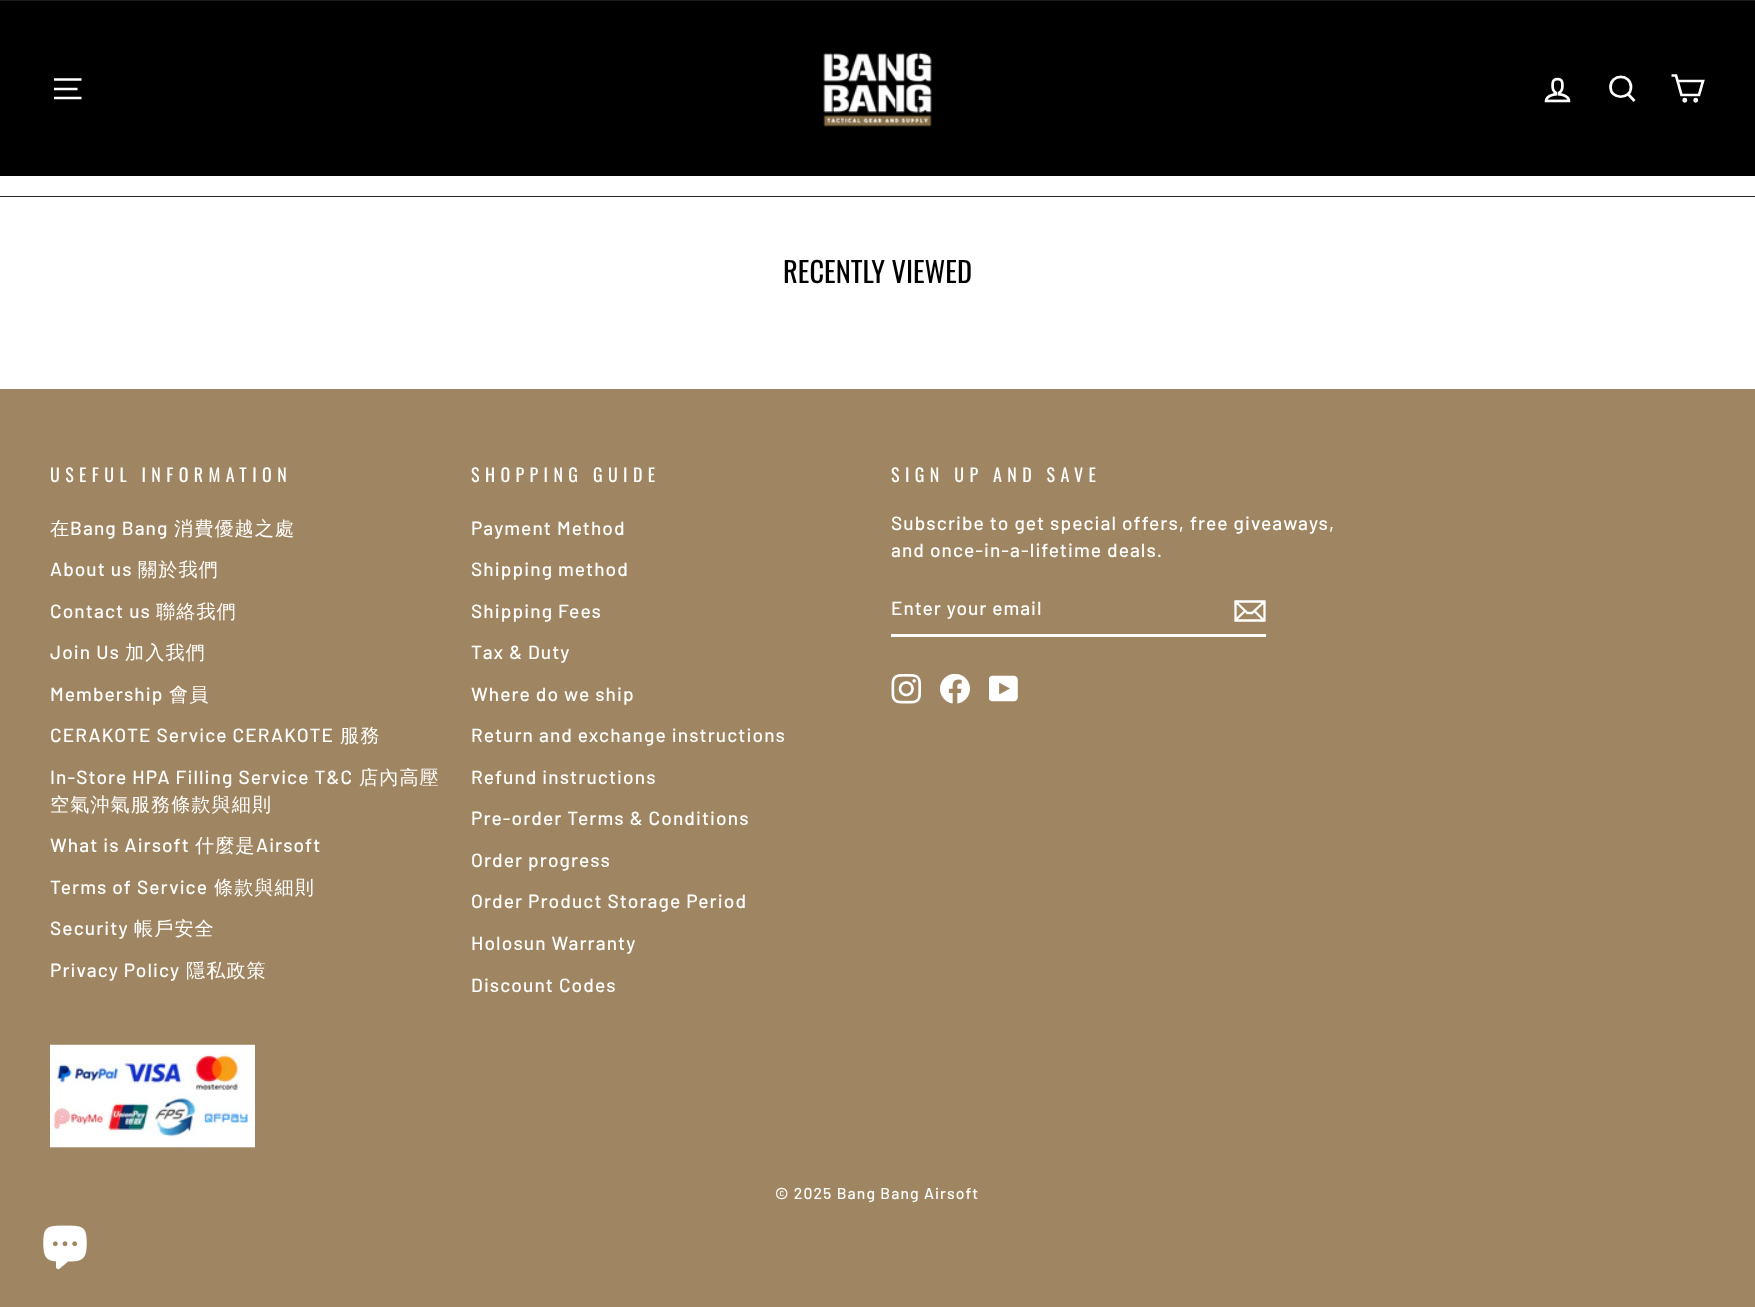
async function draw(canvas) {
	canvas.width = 1755;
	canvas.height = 1307;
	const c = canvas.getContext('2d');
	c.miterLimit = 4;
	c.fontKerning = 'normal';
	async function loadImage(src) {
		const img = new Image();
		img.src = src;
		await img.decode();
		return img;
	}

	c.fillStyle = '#fff';
	c.fillRect(0, 0, 1755, 1307);
	c.fillStyle = '#000';
	c.fillRect(0, 1, 1755, 175);
	c.fillStyle = '#1a1a1a';
	c.fillRect(0, 0, 1755, 1);
	c.beginPath();
	c.moveTo(54, 79.5);
	c.lineTo(81.5, 79.5);
	c.moveTo(54, 89);
	c.lineTo(77.5, 89);
	c.moveTo(54, 98);
	c.lineTo(81.5, 98);
	c.strokeStyle = '#fff';
	c.lineWidth = 2.7;
	c.stroke();
	c.drawImage(await loadImage('img1.png'), 823, 52, 109, 75);
	c.drawImage(await loadImage('img2.png'), 1544, 77, 27, 26);
	c.beginPath();
	c.moveTo(1631, 87);
	c.bezierCurveTo(1631, 100, 1610.5, 100, 1610.5, 87);
	c.bezierCurveTo(1610.5, 73.5, 1631, 73.5, 1631, 87);
	c.closePath();
	c.moveTo(1634.5, 101);
	c.lineTo(1628, 94);
	c.stroke();
	c.beginPath();
	c.moveTo(1677.5, 81);
	c.lineTo(1703, 81);
	c.lineTo(1699, 95);
	c.lineTo(1681.5, 95);
	c.lineTo(1676, 75.5);
	c.lineTo(1671.5, 75.5);
	c.stroke();
	c.beginPath();
	c.arc(1684.8, 100.2, 1.1, 0, 2 * Math.PI);
	c.stroke();
	c.beginPath();
	c.arc(1695.7, 100.2, 1.1, 0, 2 * Math.PI);
	c.stroke();
	c.fillStyle = '#2b2a27';
	c.fillRect(0, 196, 1755, 1);
	c.font = '28.5px Oswald';
	c.fillStyle = '#000';
	c.fillText('RECENTLY VIEWED', 783, 283);
	c.fillStyle = '#9f8561';
	c.fillRect(0, 389, 1755, 918);
	c.letterSpacing = '5.4px';
	c.font = '18px Oswald';
	c.fillStyle = '#fff';
	c.fillText('USEFUL INFORMATION', 50, 482);
	c.letterSpacing = '1.1px';
	c.font = '500 19.1px WenQuanYi Zen Hei';
	c.fillText('在', 50, 535);
	c.font = '500 19.1px Barlow';
	c.fillText('Bang Bang', 70, 535);
	c.font = '500 19.1px WenQuanYi Zen Hei';
	c.fillText('消費優越之處', 174, 535);
	c.font = '500 19.1px Barlow';
	c.fillText('About us', 50, 576);
	c.font = '500 19.1px WenQuanYi Zen Hei';
	c.fillText('關於我們', 138, 576);
	c.font = '500 19.1px Barlow';
	c.fillText('Contact us', 50, 618);
	c.font = '500 19.1px WenQuanYi Zen Hei';
	c.fillText('聯絡我們', 156, 618);
	c.font = '500 19.1px Barlow';
	c.fillText('Join Us', 50, 659);
	c.font = '500 19.1px WenQuanYi Zen Hei';
	c.fillText('加入我們', 125, 659);
	c.font = '500 19.1px Barlow';
	c.fillText('Membership', 50, 701);
	c.font = '500 19.1px WenQuanYi Zen Hei';
	c.fillText('會員', 169, 701);
	c.font = '500 19.1px Barlow';
	c.fillText('CERAKOTE Service CERAKOTE', 50, 742);
	c.font = '500 19.1px WenQuanYi Zen Hei';
	c.fillText('服務', 340, 742);
	c.font = '500 19.1px Barlow';
	c.fillText('In-Store HPA Filling Service T&C', 50, 784);
	c.font = '500 19.1px WenQuanYi Zen Hei';
	c.fillText('店內高壓', 359, 784);
	c.fillText('空氣沖氣服務條款與細則', 50, 811);
	c.font = '500 19.1px Barlow';
	c.fillText('What is Airsoft', 50, 852);
	c.font = '500 19.1px WenQuanYi Zen Hei';
	c.fillText('什麼是', 195, 852);
	c.font = '500 19.1px Barlow';
	c.fillText('Airsoft', 256, 852);
	c.fillText('Terms of Service', 50, 894);
	c.font = '500 19.1px WenQuanYi Zen Hei';
	c.fillText('條款與細則', 214, 894);
	c.font = '500 19.1px Barlow';
	c.fillText('Security', 50, 935);
	c.font = '500 19.1px WenQuanYi Zen Hei';
	c.fillText('帳戶安全', 134, 935);
	c.font = '500 19.1px Barlow';
	c.fillText('Privacy Policy', 50, 977);
	c.font = '500 19.1px WenQuanYi Zen Hei';
	c.fillText('隱私政策', 186, 977);
	c.letterSpacing = '5.4px';
	c.font = '18px Oswald';
	c.fillText('SHOPPING GUIDE', 471, 482);
	c.letterSpacing = '1.1px';
	c.font = '500 19.1px Barlow';
	for (const [text, x, y] of [
		['Payment Method', 471, 535],
		['Shipping method', 471, 576],
		['Shipping Fees', 471, 618],
		['Tax & Duty', 471, 659],
		['Where do we ship', 471, 701],
		['Return and exchange instructions', 471, 742],
		['Refund instructions', 471, 784],
		['Pre-order Terms & Conditions', 471, 825],
		['Order progress', 471, 867],
		['Order Product Storage Period', 471, 908],
		['Holosun Warranty', 471, 950],
		['Discount Codes', 471, 992],
	]) {
		c.fillText(text, x, y);
	}
	c.letterSpacing = '5.4px';
	c.font = '18px Oswald';
	c.fillText('SIGN UP AND SAVE', 891, 482);
	c.letterSpacing = '1.1px';
	c.font = '500 19.1px Barlow';
	c.fillText('Subscribe to get special offers, free giveaways,', 891, 530);
	c.fillText('and once-in-a-lifetime deals.', 891, 557);
	c.fillRect(891, 634, 375, 3);
	c.letterSpacing = '1px';
	c.fillText('Enter your email', 891, 615);
	c.beginPath();
	c.moveTo(1264.5, 620.5);
	c.lineTo(1235.5, 620.5);
	c.lineTo(1235.5, 601.5);
	c.lineTo(1264.5, 601.5);
	c.closePath();
	c.moveTo(1235.5, 601.5);
	c.lineTo(1247.5, 613);
	c.lineTo(1252, 613);
	c.lineTo(1264.5, 601.5);
	c.moveTo(1245, 611);
	c.lineTo(1235.5, 620);
	c.moveTo(1264, 620.5);
	c.lineTo(1254.5, 611);
	c.lineWidth = 2.3;
	c.stroke();
	c.drawImage(await loadImage('img3.png'), 891, 674, 30, 30);
	c.drawImage(await loadImage('img4.png'), 940, 674, 30, 30);
	c.drawImage(await loadImage('img5.png'), 989, 675, 29, 27);
	c.drawImage(await loadImage('img6.png'), 50, 1044, 205, 104);
	c.letterSpacing = '1.1px';
	c.font = '500 15.75px Barlow';
	c.fillText('© 2025 Bang Bang Airsoft', 775, 1199);
	c.drawImage(await loadImage('img7.png'), 43, 1225, 44, 45);
}

draw(document.querySelector('canvas'));
